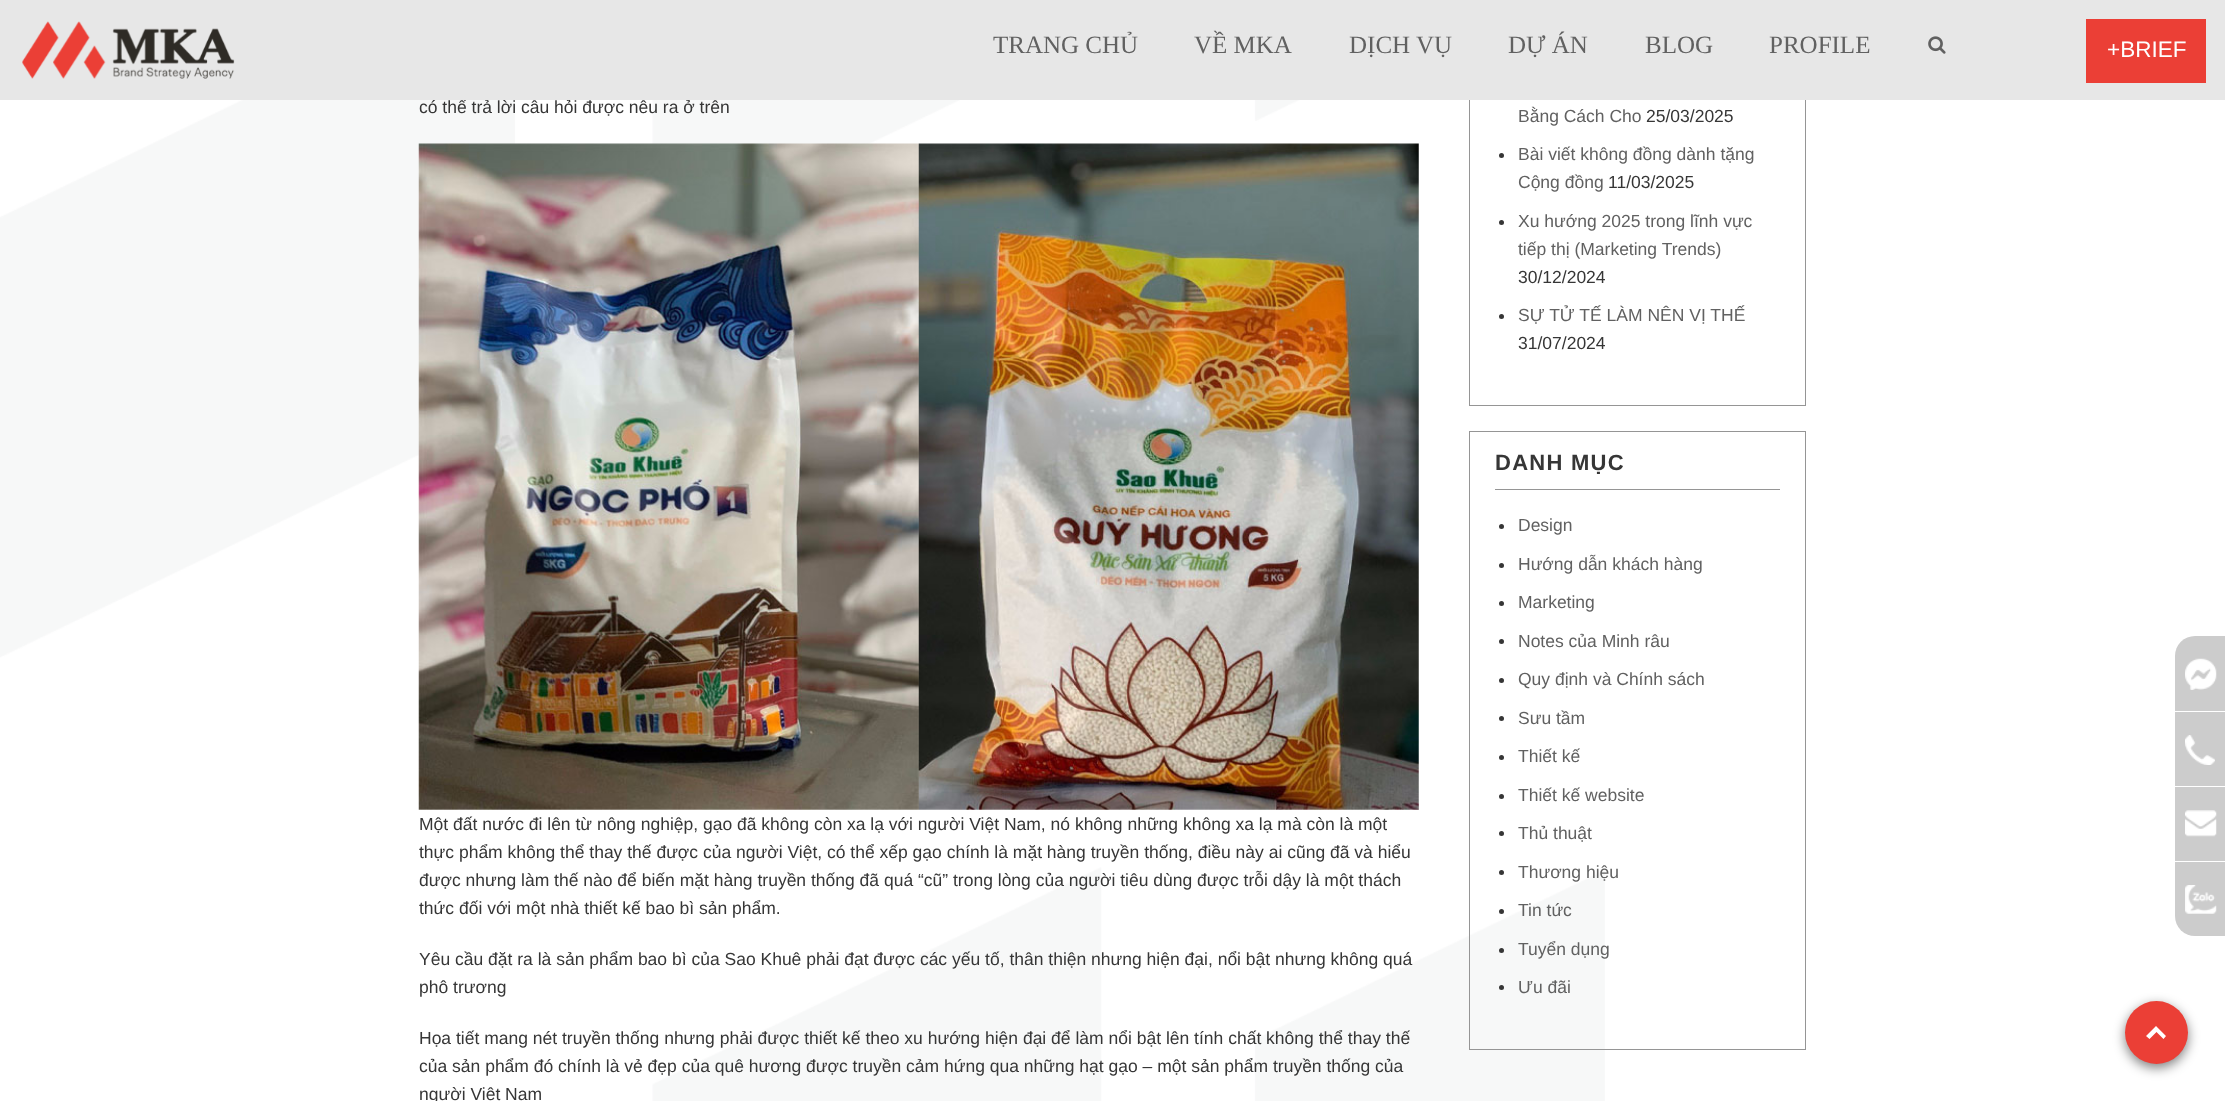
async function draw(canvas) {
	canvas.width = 2225;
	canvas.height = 1101;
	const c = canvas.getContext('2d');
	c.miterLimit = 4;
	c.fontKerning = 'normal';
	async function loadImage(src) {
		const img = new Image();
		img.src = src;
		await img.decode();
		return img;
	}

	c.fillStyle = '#fff';
	c.fillRect(0, 0, 2225, 1101);
	c.drawImage(await loadImage('img1.png'), 0, 100, 1605, 1001);
	c.font = '17.5px Liberation Sans';
	c.fillStyle = '#363636';
	c.fillText('có thể trả lời câu hỏi được nêu ra ở trên', 419, 113);
	c.strokeStyle = '#959595';
	c.strokeRect(1469.5, -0.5, 336, 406);
	c.fillStyle = '#e7e7e7';
	c.fillRect(0, 0, 2225, 100);
	c.drawImage(await loadImage('img2.png'), 22, 21, 213, 58);
	c.font = '25px Liberation Serif';
	c.fillStyle = '#616161';
	for (const [text, x, y] of [
		['TRANG CHỦ', 993, 53],
		['VỀ MKA', 1194, 53],
		['DỊCH VỤ', 1349, 53],
		['DỰ ÁN', 1508, 53],
		['BLOG', 1645, 53],
		['PROFILE', 1769, 53],
	]) {
		c.fillText(text, x, y);
	}
	c.drawImage(await loadImage('img3.png'), 1928, 36, 18, 18);
	c.fillStyle = '#eb3f36';
	c.fillRect(2086, 19, 120, 64);
	c.font = '22.5px Liberation Sans';
	c.fillStyle = '#fff';
	c.fillText('+BRIEF', 2107, 57);
	c.drawImage(await loadImage('img4.png'), 418, 143, 1001, 667);
	c.font = '17.5px Liberation Sans';
	c.fillStyle = '#363636';
	for (const [text, x, y] of [
		['Một đất nước đi lên từ nông nghiệp, gạo đã không còn xa lạ với người Việt Nam, nó không những không xa lạ mà còn là một', 419, 830],
		['thực phẩm không thể thay thế được của người Việt, có thể xếp gạo chính là mặt hàng truyền thống, điều này ai cũng đã và hiểu', 419, 858],
		['được nhưng làm thế nào để biến mặt hàng truyền thống đã quá “cũ” trong lòng của người tiêu dùng được trỗi dậy là một thách', 419, 886],
		['thức đối với một nhà thiết kế bao bì sản phẩm.', 419, 914],
		['Yêu cầu đặt ra là sản phẩm bao bì của Sao Khuê phải đạt được các yếu tố, thân thiện nhưng hiện đại, nổi bật nhưng không quá', 419, 965],
		['phô trương', 419, 993],
		['Họa tiết mang nét truyền thống nhưng phải được thiết kế theo xu hướng hiện đại để làm nổi bật lên tính chất không thể thay thế', 419, 1044],
		['của sản phẩm đó chính là vẻ đẹp của quê hương được truyền cảm hứng qua những hạt gạo – một sản phẩm truyền thống của', 419, 1072],
		['người Việt Nam', 419, 1100],
	]) {
		c.fillText(text, x, y);
	}
	c.fillStyle = '#616161';
	c.fillText('Bằng Cách Cho', 1518, 122);
	c.fillStyle = '#363636';
	c.fillText('25/03/2025', 1646, 122);
	c.beginPath();
	c.arc(1501.5, 155.5, 2.5, 0, 2 * Math.PI);
	c.fill();
	c.fillStyle = '#616161';
	c.fillText('Bài viết không đồng dành tặng', 1518, 160);
	c.fillText('Cộng đồng', 1518, 188);
	c.fillStyle = '#363636';
	c.fillText('11/03/2025', 1608, 188);
	c.beginPath();
	c.arc(1501.5, 222.5, 2.5, 0, 2 * Math.PI);
	c.fill();
	c.fillStyle = '#616161';
	c.fillText('Xu hướng 2025 trong lĩnh vực', 1518, 227);
	c.fillText('tiếp thị (Marketing Trends)', 1518, 255);
	c.fillStyle = '#363636';
	c.fillText('30/12/2024', 1518, 283);
	c.beginPath();
	c.arc(1501.5, 316.5, 2.5, 0, 2 * Math.PI);
	c.fill();
	c.fillStyle = '#616161';
	c.fillText('SỰ TỬ TẾ LÀM NÊN VỊ THẾ', 1518, 321);
	c.fillStyle = '#363636';
	c.fillText('31/07/2024', 1518, 349);
	c.strokeRect(1469.5, 431.5, 336, 618);
	c.fillStyle = '#959595';
	c.fillRect(1495, 489, 285, 1);
	c.letterSpacing = '1.25px';
	c.font = 'bold 22px Liberation Sans';
	c.fillStyle = '#363636';
	c.fillText('DANH MỤC', 1495, 470);
	c.beginPath();
	c.arc(1501.5, 526.5, 2.5, 0, 2 * Math.PI);
	c.fill();
	c.letterSpacing = '0px';
	c.font = '17.5px Liberation Sans';
	c.fillStyle = '#616161';
	c.fillText('Design', 1518, 531);
	c.fillStyle = '#363636';
	c.beginPath();
	c.arc(1501.5, 565.5, 2.5, 0, 2 * Math.PI);
	c.fill();
	c.fillStyle = '#616161';
	c.fillText('Hướng dẫn khách hàng', 1518, 570);
	c.fillStyle = '#363636';
	c.beginPath();
	c.arc(1501.5, 603.5, 2.5, 0, 2 * Math.PI);
	c.fill();
	c.fillStyle = '#616161';
	c.fillText('Marketing', 1518, 608);
	c.fillStyle = '#363636';
	c.beginPath();
	c.arc(1501.5, 641.5, 2.5, 0, 2 * Math.PI);
	c.fill();
	c.fillStyle = '#616161';
	c.fillText('Notes của Minh râu', 1518, 647);
	c.fillStyle = '#363636';
	c.beginPath();
	c.arc(1501.5, 680.5, 2.5, 0, 2 * Math.PI);
	c.fill();
	c.fillStyle = '#616161';
	c.fillText('Quy định và Chính sách', 1518, 685);
	c.fillStyle = '#363636';
	c.beginPath();
	c.arc(1501.5, 718.5, 2.5, 0, 2 * Math.PI);
	c.fill();
	c.fillStyle = '#616161';
	c.fillText('Sưu tầm', 1518, 724);
	c.fillStyle = '#363636';
	c.beginPath();
	c.arc(1501.5, 757.5, 2.5, 0, 2 * Math.PI);
	c.fill();
	c.fillStyle = '#616161';
	c.fillText('Thiết kế', 1518, 762);
	c.fillStyle = '#363636';
	c.beginPath();
	c.arc(1501.5, 796.5, 2.5, 0, 2 * Math.PI);
	c.fill();
	c.fillStyle = '#616161';
	c.fillText('Thiết kế website', 1518, 801);
	c.fillStyle = '#363636';
	c.beginPath();
	c.arc(1501.5, 833.5, 2.5, 0, 2 * Math.PI);
	c.fill();
	c.fillStyle = '#616161';
	c.fillText('Thủ thuật', 1518, 839);
	c.fillStyle = '#363636';
	c.beginPath();
	c.arc(1501.5, 872.5, 2.5, 0, 2 * Math.PI);
	c.fill();
	c.fillStyle = '#616161';
	c.fillText('Thương hiệu', 1518, 878);
	c.fillStyle = '#363636';
	c.beginPath();
	c.arc(1501.5, 911.5, 2.5, 0, 2 * Math.PI);
	c.fill();
	c.fillStyle = '#616161';
	c.fillText('Tin tức', 1518, 916);
	c.fillStyle = '#363636';
	c.beginPath();
	c.arc(1501.5, 950.5, 2.5, 0, 2 * Math.PI);
	c.fill();
	c.fillStyle = '#616161';
	c.fillText('Tuyển dụng', 1518, 955);
	c.fillStyle = '#363636';
	c.beginPath();
	c.arc(1501.5, 987.5, 2.5, 0, 2 * Math.PI);
	c.fill();
	c.fillStyle = '#616161';
	c.fillText('Ưu đãi', 1518, 993);
	c.fillStyle = '#00000080';
	c.filter = 'blur(6px)';
	c.beginPath();
	c.roundRect(2125, 1005, 63, 63, 31.5);
	c.fill();
	c.filter = 'none';
	c.fillStyle = '#eb3f36';
	c.beginPath();
	c.arc(2156.5, 1032.5, 31.5, 0, 2 * Math.PI);
	c.fill();
	c.fillStyle = '#fff';
	c.beginPath();
	c.moveTo(2156, 1026);
	c.lineTo(2166, 1036);
	c.lineTo(2163.5, 1039);
	c.lineTo(2156.5, 1032);
	c.lineTo(2149.5, 1039);
	c.lineTo(2146, 1036);
	c.closePath();
	c.fill();
	c.fillStyle = '#ccc';
	c.beginPath();
	c.roundRect(2175, 636, 50, 75, [20, 0, 0, 0]);
	c.fill();
	c.drawImage(await loadImage('img5.png'), 2185, 658, 32, 32);
	c.fillRect(2175, 712, 50, 74);
	c.drawImage(await loadImage('img6.png'), 2185, 735, 30, 30);
	c.fillRect(2175, 787, 50, 74);
	c.drawImage(await loadImage('img7.png'), 2185, 810, 32, 27);
	c.beginPath();
	c.roundRect(2175, 861, 50, 75, [0, 0, 0, 20]);
	c.fill();
	c.drawImage(await loadImage('img8.png'), 2185, 885, 32, 29);
	c.fillStyle = '#fff';
	c.fillRect(2175, 861, 50, 1);
}

draw(document.querySelector('canvas'));
